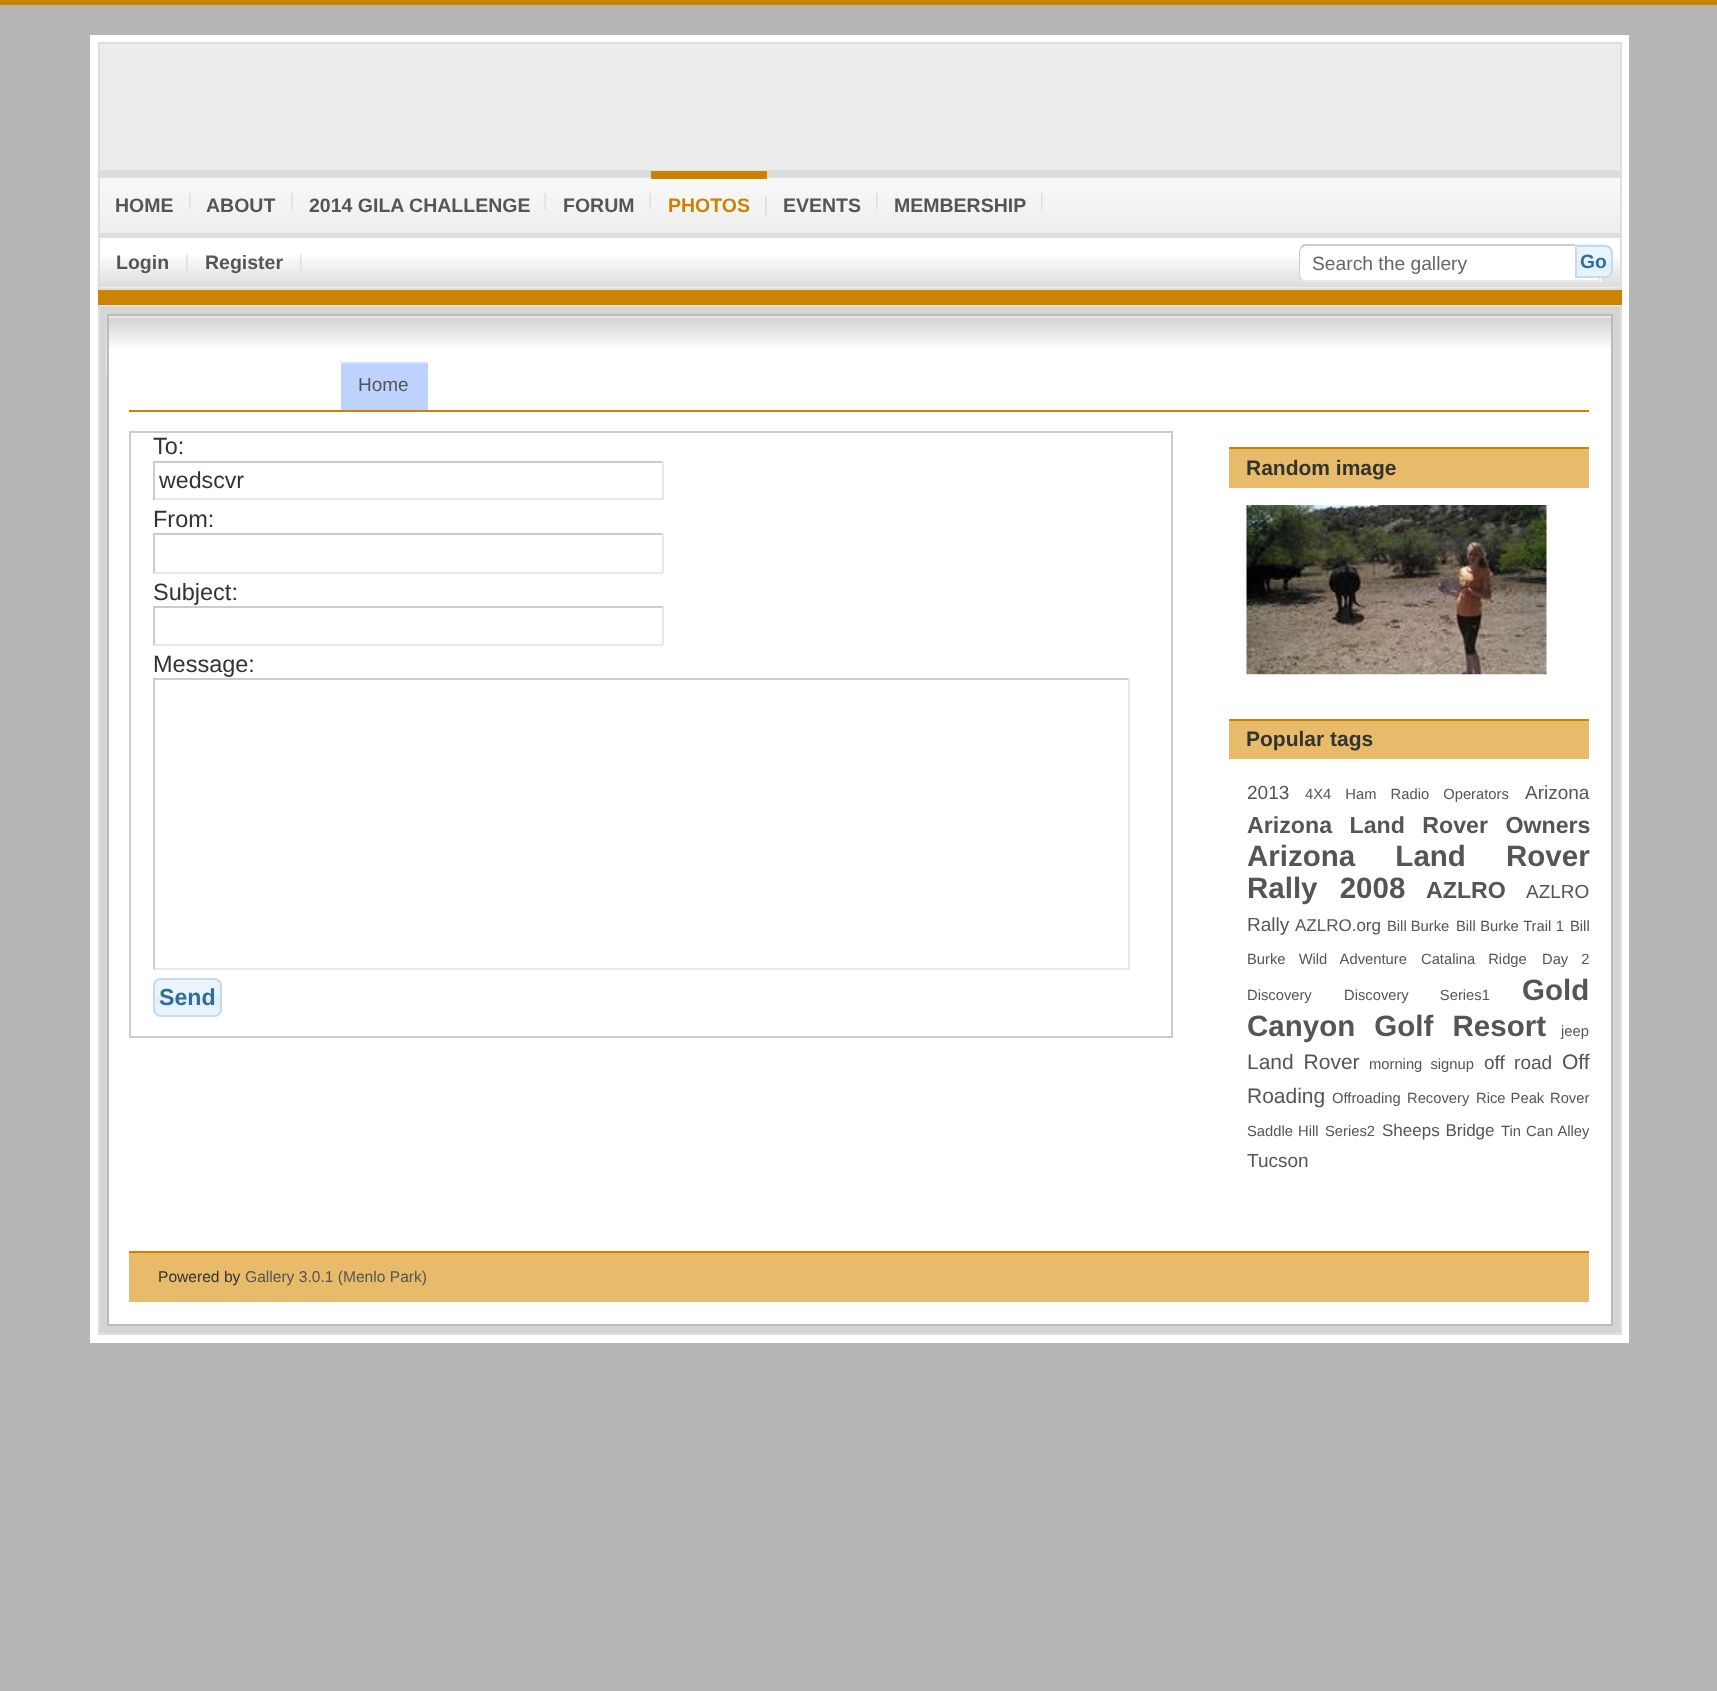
async function draw(canvas) {
	canvas.width = 1717;
	canvas.height = 1691;
	const c = canvas.getContext('2d');
	c.miterLimit = 4;
	c.fontKerning = 'normal';
	async function loadImage(src) {
		const img = new Image();
		img.src = src;
		await img.decode();
		return img;
	}

	c.fillStyle = '#b6b6b6';
	c.fillRect(0, 0, 1717, 1691);
	for (const [x, y, w, h, color] of [
		[0, 0, 1717, 5, '#cc8300'],
		[90, 35, 1539, 1308, '#fff'],
		[100, 44, 1520, 126, '#ededed'],
		[98, 42, 1524, 2, '#dedede'],
		[1620, 42, 2, 128, '#dedede'],
		[98, 42, 2, 128, '#dedede'],
		[100, 232, 1520, 1, '#ededed'],
	]) {
		c.fillStyle = color;
		c.fillRect(x, y, w, h);
	}
	c.drawImage(await loadImage('img1.png'), 97, 170, 1523, 62);
	for (const [x, y, w, h, color] of [
		[98, 170, 1524, 2, '#dedede'],
		[1620, 170, 2, 63, '#dedede'],
		[98, 170, 2, 63, '#dedede'],
	]) {
		c.fillStyle = color;
		c.fillRect(x, y, w, h);
	}
	c.drawImage(await loadImage('img2.png'), 189, 193, 2, 17);
	c.font = 'bold 19.5px Liberation Sans';
	c.fillStyle = '#555';
	c.fillText('HOME', 115, 212);
	c.drawImage(await loadImage('img2.png'), 291, 193, 2, 17);
	c.fillText('ABOUT', 206, 212);
	c.drawImage(await loadImage('img3.png'), 544, 193, 2, 17);
	c.fillText('2014 GILA CHALLENGE', 309, 212);
	c.drawImage(await loadImage('img3.png'), 649, 193, 2, 17);
	c.fillText('FORUM', 563, 212);
	c.drawImage(await loadImage('img4.png'), 765, 196, 2, 17);
	c.drawImage(await loadImage('img5.png'), 765, 201, 2, 16);
	c.fillStyle = '#cc8300';
	c.fillRect(651, 171, 116, 8);
	c.fillText('PHOTOS', 668, 212);
	c.drawImage(await loadImage('img2.png'), 876, 193, 2, 17);
	c.fillStyle = '#555';
	c.fillText('EVENTS', 783, 212);
	c.drawImage(await loadImage('img2.png'), 1041, 193, 2, 17);
	c.fillText('MEMBERSHIP', 894, 212);
	c.drawImage(await loadImage('img6.png'), 97, 257, 1523, 31);
	for (const [x, y, w, h, color] of [
		[98, 233, 1524, 5, '#dedede'],
		[1620, 233, 2, 57, '#dedede'],
		[98, 288, 1524, 2, '#dedede'],
		[98, 233, 2, 57, '#dedede'],
	]) {
		c.fillStyle = color;
		c.fillRect(x, y, w, h);
	}
	c.drawImage(await loadImage('img7.png'), 186, 254, 2, 17);
	c.fillStyle = '#555';
	c.fillText('Login', 116, 269);
	c.drawImage(await loadImage('img7.png'), 300, 254, 2, 17);
	c.fillText('Register', 205, 269);
	c.fillStyle = '#fff';
	c.beginPath();
	c.roundRect(1299, 245, 302, 37, [8, 0, 0, 8]);
	c.fill();
	c.fillStyle = '#ccc';
	c.beginPath();
	c.moveTo(1306, 246);
	c.bezierCurveTo(1305, 246, 1303, 247, 1302, 248);
	c.lineTo(1301, 246);
	c.lineTo(1304, 244);
	c.lineTo(1600, 244);
	c.lineTo(1599, 246);
	c.closePath();
	c.fill();
	c.fillStyle = '#e8e8e8';
	c.beginPath();
	c.moveTo(1600, 245);
	c.lineTo(1600, 281.5);
	c.lineTo(1598.5, 280);
	c.lineTo(1599, 280);
	c.lineTo(1599, 246);
	c.closePath();
	c.fill();
	c.beginPath();
	c.moveTo(1306, 282);
	c.lineTo(1600, 282);
	c.lineTo(1598, 280);
	c.lineTo(1306, 280);
	c.bezierCurveTo(1305, 280, 1303, 280, 1302, 279);
	c.lineTo(1301, 280);
	c.bezierCurveTo(1302, 281, 1304, 282, 1306, 282);
	c.closePath();
	c.fill();
	c.fillStyle = '#ccc';
	c.beginPath();
	c.moveTo(1299, 252);
	c.lineTo(1299, 274);
	c.bezierCurveTo(1299, 276.5, 1300, 278.5, 1301, 280);
	c.lineTo(1302, 279);
	c.bezierCurveTo(1301, 278, 1300, 276, 1300, 274);
	c.lineTo(1300, 252);
	c.bezierCurveTo(1300, 250.5, 1301, 249, 1302, 247.5);
	c.lineTo(1301, 246.5);
	c.bezierCurveTo(1300, 248, 1299, 250, 1299, 252);
	c.closePath();
	c.fill();
	c.font = '19.25px Liberation Sans';
	c.fillStyle = '#666';
	c.fillText('Search the gallery', 1312, 270);
	c.drawImage(await loadImage('img8.png'), 1575, 244, 37, 33);
	c.beginPath();
	c.roundRect(1576, 246, 36, 31, [0, 7, 7, 0]);
	c.strokeStyle = '#c5dbec';
	c.lineWidth = 2;
	c.stroke();
	c.font = 'bold 19.25px Liberation Sans';
	c.fillStyle = '#2e6e9e';
	c.fillText('Go', 1580, 268);
	c.fillStyle = '#cc8300';
	c.fillRect(98, 290, 1524, 15);
	c.fillStyle = '#d5d5d5';
	c.beginPath();
	c.rect(99, 306, 1522, 1028);
	c.fill();
	c.strokeStyle = '#dedede';
	c.stroke();
	c.fillStyle = '#fff';
	c.fillRect(109, 374, 1502, 950);
	c.drawImage(await loadImage('img9.png'), 106, 314, 1505, 61);
	c.strokeStyle = '#bbb';
	c.strokeRect(108, 315, 1504, 1010);
	for (const [x, y, w, h, color] of [
		[129, 410, 1460, 2, '#cc8300'],
		[341, 364, 87, 46, '#bdd2ff'],
		[339, 362, 89, 2, '#cfdeff'],
		[339, 362, 2, 2, '#fff'],
	]) {
		c.fillStyle = color;
		c.fillRect(x, y, w, h);
	}
	c.font = '19px Liberation Sans';
	c.fillStyle = '#555';
	c.fillText('Home', 358, 391);
	c.strokeStyle = '#ccc';
	c.strokeRect(130, 432, 1042, 605);
	c.font = '23.5px Liberation Sans';
	c.fillStyle = '#333';
	c.fillText('To:', 153, 454);
	for (const [x, y, w, h, color] of [
		[153, 461, 510, 2, '#ccc'],
		[662, 461, 2, 39, '#e8e8e8'],
		[153, 498, 510, 2, '#e8e8e8'],
		[153, 461, 2, 39, '#ccc'],
	]) {
		c.fillStyle = color;
		c.fillRect(x, y, w, h);
	}
	c.font = '23.2px Liberation Sans';
	c.fillStyle = '#333';
	c.fillText('wedscvr', 159, 488);
	c.font = '23.5px Liberation Sans';
	c.fillText('From:', 153, 527);
	for (const [x, y, w, h, color] of [
		[153, 533, 510, 2, '#ccc'],
		[662, 533, 2, 40, '#e8e8e8'],
		[153, 572, 510, 2, '#e8e8e8'],
		[153, 533, 2, 40, '#ccc'],
	]) {
		c.fillStyle = color;
		c.fillRect(x, y, w, h);
	}
	c.fillStyle = '#333';
	c.fillText('Subject:', 153, 600);
	for (const [x, y, w, h, color] of [
		[153, 606, 510, 2, '#ccc'],
		[662, 606, 2, 39, '#e8e8e8'],
		[153, 644, 510, 2, '#e8e8e8'],
		[153, 606, 2, 39, '#ccc'],
	]) {
		c.fillStyle = color;
		c.fillRect(x, y, w, h);
	}
	c.fillStyle = '#333';
	c.fillText('Message:', 153, 672);
	for (const [x, y, w, h, color] of [
		[153, 678, 977, 2, '#ccc'],
		[1128, 678, 2, 291, '#e8e8e8'],
		[153, 968, 977, 2, '#e8e8e8'],
		[153, 678, 2, 291, '#ccc'],
	]) {
		c.fillStyle = color;
		c.fillRect(x, y, w, h);
	}
	c.drawImage(await loadImage('img10.png'), 153, 977, 69, 40);
	c.beginPath();
	c.roundRect(154, 979, 67, 37, 7);
	c.strokeStyle = '#c5dbec';
	c.stroke();
	c.font = 'bold 23.2px Liberation Sans';
	c.fillStyle = '#2e6e9e';
	c.fillText('Send', 159, 1005);
	c.fillStyle = '#e8bb6a';
	c.fillRect(1229, 449, 360, 39);
	c.fillStyle = '#cc8300';
	c.fillRect(1229, 447, 360, 2);
	c.font = 'bold 21px Liberation Sans';
	c.fillStyle = '#333';
	c.fillText('Random image', 1246, 475);
	c.drawImage(await loadImage('img11.png'), 1246, 505, 301, 170);
	c.fillStyle = '#e8bb6a';
	c.fillRect(1229, 721, 360, 38);
	c.fillStyle = '#cc8300';
	c.fillRect(1229, 719, 360, 2);
	c.fillStyle = '#333';
	c.fillText('Popular tags', 1246, 746);
	c.font = '19px Liberation Sans';
	c.fillStyle = '#555';
	c.fillText('2013', 1247, 799);
	c.wordSpacing = '10px';
	c.font = '14.75px Liberation Sans';
	c.fillText('4X4 Ham Radio Operators', 1305, 799);
	c.wordSpacing = '0px';
	c.font = '19px Liberation Sans';
	c.fillText('Arizona', 1525, 799);
	c.wordSpacing = '11px';
	c.font = 'bold 23.2px Liberation Sans';
	c.fillText('Arizona Land Rover Owners', 1247, 833);
	c.wordSpacing = '32px';
	c.font = 'bold 29.5px Liberation Sans';
	c.fillText('Arizona Land Rover', 1247, 866);
	c.wordSpacing = '14px';
	c.fillText('Rally 2008', 1247, 898);
	c.wordSpacing = '0px';
	c.font = 'bold 23.2px Liberation Sans';
	c.fillText('AZLRO', 1426, 898);
	c.font = '19px Liberation Sans';
	c.fillText('AZLRO', 1526, 898);
	c.fillText('Rally', 1247, 931);
	c.font = '17px Liberation Sans';
	c.fillText('AZLRO.org', 1295, 931);
	c.font = '14.75px Liberation Sans';
	c.fillText('Bill Burke', 1387, 931);
	c.wordSpacing = '0.5px';
	c.fillText('Bill Burke Trail 1', 1456, 931);
	c.wordSpacing = '0px';
	c.fillText('Bill', 1570, 931);
	c.wordSpacing = '9px';
	for (const [text, x, y] of [
		['Burke Wild Adventure', 1247, 964],
		['Catalina Ridge', 1421, 964],
		['Day 2', 1542, 964],
	]) {
		c.fillText(text, x, y);
	}
	c.wordSpacing = '0px';
	c.fillText('Discovery', 1247, 1000);
	c.wordSpacing = '27px';
	c.fillText('Discovery Series1', 1344, 1000);
	c.wordSpacing = '0px';
	c.font = 'bold 29.5px Liberation Sans';
	c.fillText('Gold', 1522, 1000);
	c.wordSpacing = '11px';
	c.fillText('Canyon Golf Resort', 1247, 1036);
	c.wordSpacing = '0px';
	c.font = '14.75px Liberation Sans';
	c.fillText('jeep', 1561, 1036);
	c.wordSpacing = '4px';
	c.font = '21px Liberation Sans';
	c.fillText('Land Rover', 1247, 1069);
	c.font = '14.75px Liberation Sans';
	c.fillText('morning signup', 1369, 1069);
	c.font = '19px Liberation Sans';
	c.fillText('off road', 1484, 1069);
	c.wordSpacing = '0px';
	c.font = '21px Liberation Sans';
	c.fillText('Off', 1562, 1069);
	c.fillText('Roading', 1247, 1103);
	c.font = '14.75px Liberation Sans';
	c.fillText('Offroading', 1332, 1103);
	c.fillText('Recovery', 1407, 1103);
	c.wordSpacing = '1px';
	c.fillText('Rice Peak', 1476, 1103);
	c.wordSpacing = '0px';
	c.fillText('Rover', 1550, 1103);
	c.wordSpacing = '1px';
	c.fillText('Saddle Hill', 1247, 1136);
	c.wordSpacing = '0px';
	c.fillText('Series2', 1325, 1136);
	c.wordSpacing = '1px';
	c.font = '17px Liberation Sans';
	c.fillText('Sheeps Bridge', 1382, 1136);
	c.font = '14.75px Liberation Sans';
	c.fillText('Tin Can Alley', 1501, 1136);
	c.wordSpacing = '0px';
	c.font = '19px Liberation Sans';
	c.fillText('Tucson', 1247, 1167);
	c.fillStyle = '#e8bb6a';
	c.fillRect(129, 1253, 1460, 49);
	c.fillStyle = '#cc8300';
	c.fillRect(129, 1251, 1460, 2);
	c.font = '15.6px Liberation Sans';
	c.fillStyle = '#333';
	c.fillText('Powered by', 158, 1282);
	c.fillStyle = '#555';
	c.fillText('Gallery 3.0.1 (Menlo Park)', 245, 1282);
}

draw(document.querySelector('canvas'));
